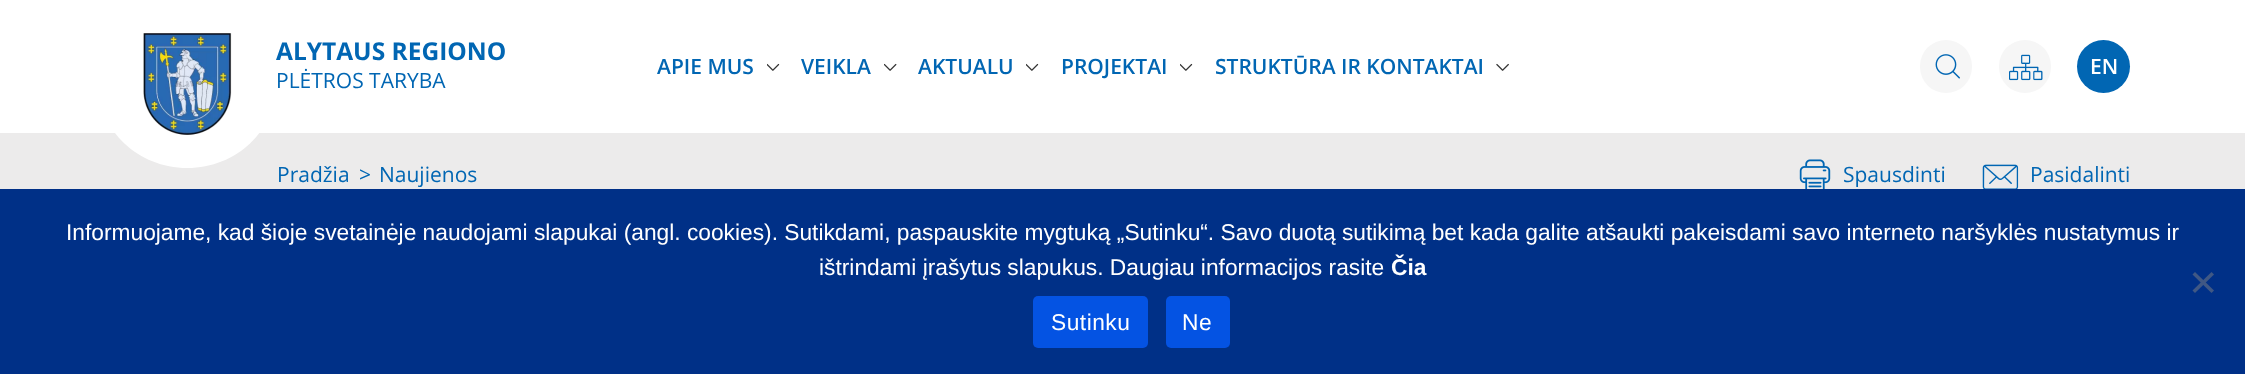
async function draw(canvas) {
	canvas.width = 2245;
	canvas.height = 374;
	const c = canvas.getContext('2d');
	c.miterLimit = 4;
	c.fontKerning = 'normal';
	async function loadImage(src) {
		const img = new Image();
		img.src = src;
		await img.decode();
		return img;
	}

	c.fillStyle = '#ecebeb';
	c.fillRect(0, 0, 2245, 374);
	c.fillStyle = '#fff';
	c.fillRect(0, 0, 2245, 133);
	c.font = 'bold 24.5px Open Sans';
	c.fillStyle = '#0166b3';
	c.fillText('ALYTAUS REGIONO', 276, 60);
	c.fillStyle = '#fff';
	c.beginPath();
	c.moveTo(98, 0);
	c.lineTo(276, 0);
	c.lineTo(276, 84);
	c.bezierCurveTo(276, 130, 237, 168, 187, 168);
	c.bezierCurveTo(138, 168, 98, 130, 98, 84);
	c.closePath();
	c.fill();
	c.drawImage(await loadImage('img1.png'), 143, 33, 89, 102);
	c.font = '21px Open Sans';
	c.fillStyle = '#0166b3';
	c.fillText('PLĖTROS TARYBA', 276, 88);
	c.drawImage(await loadImage('img2.png'), 767, 63, 13, 8);
	c.font = '600 21px Open Sans';
	c.fillText('APIE MUS', 657, 74);
	c.drawImage(await loadImage('img3.png'), 884, 63, 13, 8);
	c.fillText('VEIKLA', 801, 74);
	c.drawImage(await loadImage('img2.png'), 1026, 63, 13, 8);
	c.fillText('AKTUALU', 918, 74);
	c.drawImage(await loadImage('img2.png'), 1180, 63, 13, 8);
	c.fillText('PROJEKTAI', 1061, 74);
	c.drawImage(await loadImage('img4.png'), 1496, 63, 13, 8);
	c.fillText('STRUKTŪRA IR KONTAKTAI', 1215, 74);
	c.fillStyle = '#f6f6f6';
	c.beginPath();
	c.roundRect(1920, 40, 52, 53, 26);
	c.fill();
	c.drawImage(await loadImage('img5.png'), 1935, 54, 25, 25);
	c.beginPath();
	c.roundRect(1999, 40, 52, 53, 26);
	c.fill();
	c.drawImage(await loadImage('img6.png'), 2009, 54, 34, 27);
	c.fillStyle = '#0166b3';
	c.beginPath();
	c.arc(2103.5, 66.5, 26.5, 0, 2 * Math.PI);
	c.fill();
	c.fillStyle = '#fff';
	c.fillText('EN', 2090, 74);
	c.font = '21px Open Sans';
	c.fillStyle = '#0166b3';
	for (const [text, x, y] of [
		['Pradžia', 277, 182],
		['>', 359, 182],
		['Naujienos', 379, 182],
	]) {
		c.fillText(text, x, y);
	}
	c.drawImage(await loadImage('img7.png'), 1799, 159, 32, 30);
	c.fillText('Spausdinti', 1843, 182);
	c.drawImage(await loadImage('img8.png'), 1982, 164, 37, 25);
	c.fillText('Pasidalinti', 2030, 182);
	c.fillStyle = '#003087';
	c.fillRect(0, 189, 2245, 185);
	c.font = '22.75px Liberation Sans';
	c.fillStyle = '#fff';
	c.fillText('Informuojame, kad šioje svetainėje naudojami slapukai (angl. cookies). Sutikdami, paspauskite mygtuką „Sutinku“. Savo duotą sutikimą bet kada galite atšaukti pakeisdami savo interneto naršyklės nustatymus ir', 66, 240);
	c.fillText('ištrindami įrašytus slapukus. Daugiau informacijos rasite', 819, 275);
	c.font = 'bold 22.75px Liberation Sans';
	c.fillText('Čia', 1391, 275);
	c.fillStyle = '#405884';
	c.beginPath();
	c.moveTo(2211.5, 272);
	c.lineTo(2214, 274.5);
	c.lineTo(2195, 293);
	c.lineTo(2192.5, 290.5);
	c.closePath();
	c.fill();
	c.beginPath();
	c.moveTo(2192.5, 274.5);
	c.lineTo(2195, 272);
	c.lineTo(2214, 290.5);
	c.lineTo(2211.5, 293);
	c.closePath();
	c.fill();
	c.fillStyle = '#0453e3';
	c.beginPath();
	c.roundRect(1033, 296, 115, 52, 5);
	c.fill();
	c.letterSpacing = '0.5px';
	c.font = '22.75px Liberation Sans';
	c.fillStyle = '#fff';
	c.fillText('Sutinku', 1051, 330);
	c.fillStyle = '#0453e3';
	c.beginPath();
	c.roundRect(1166, 296, 64, 52, 5);
	c.fill();
	c.fillStyle = '#fff';
	c.fillText('Ne', 1182, 330);
}

draw(document.querySelector('canvas'));
